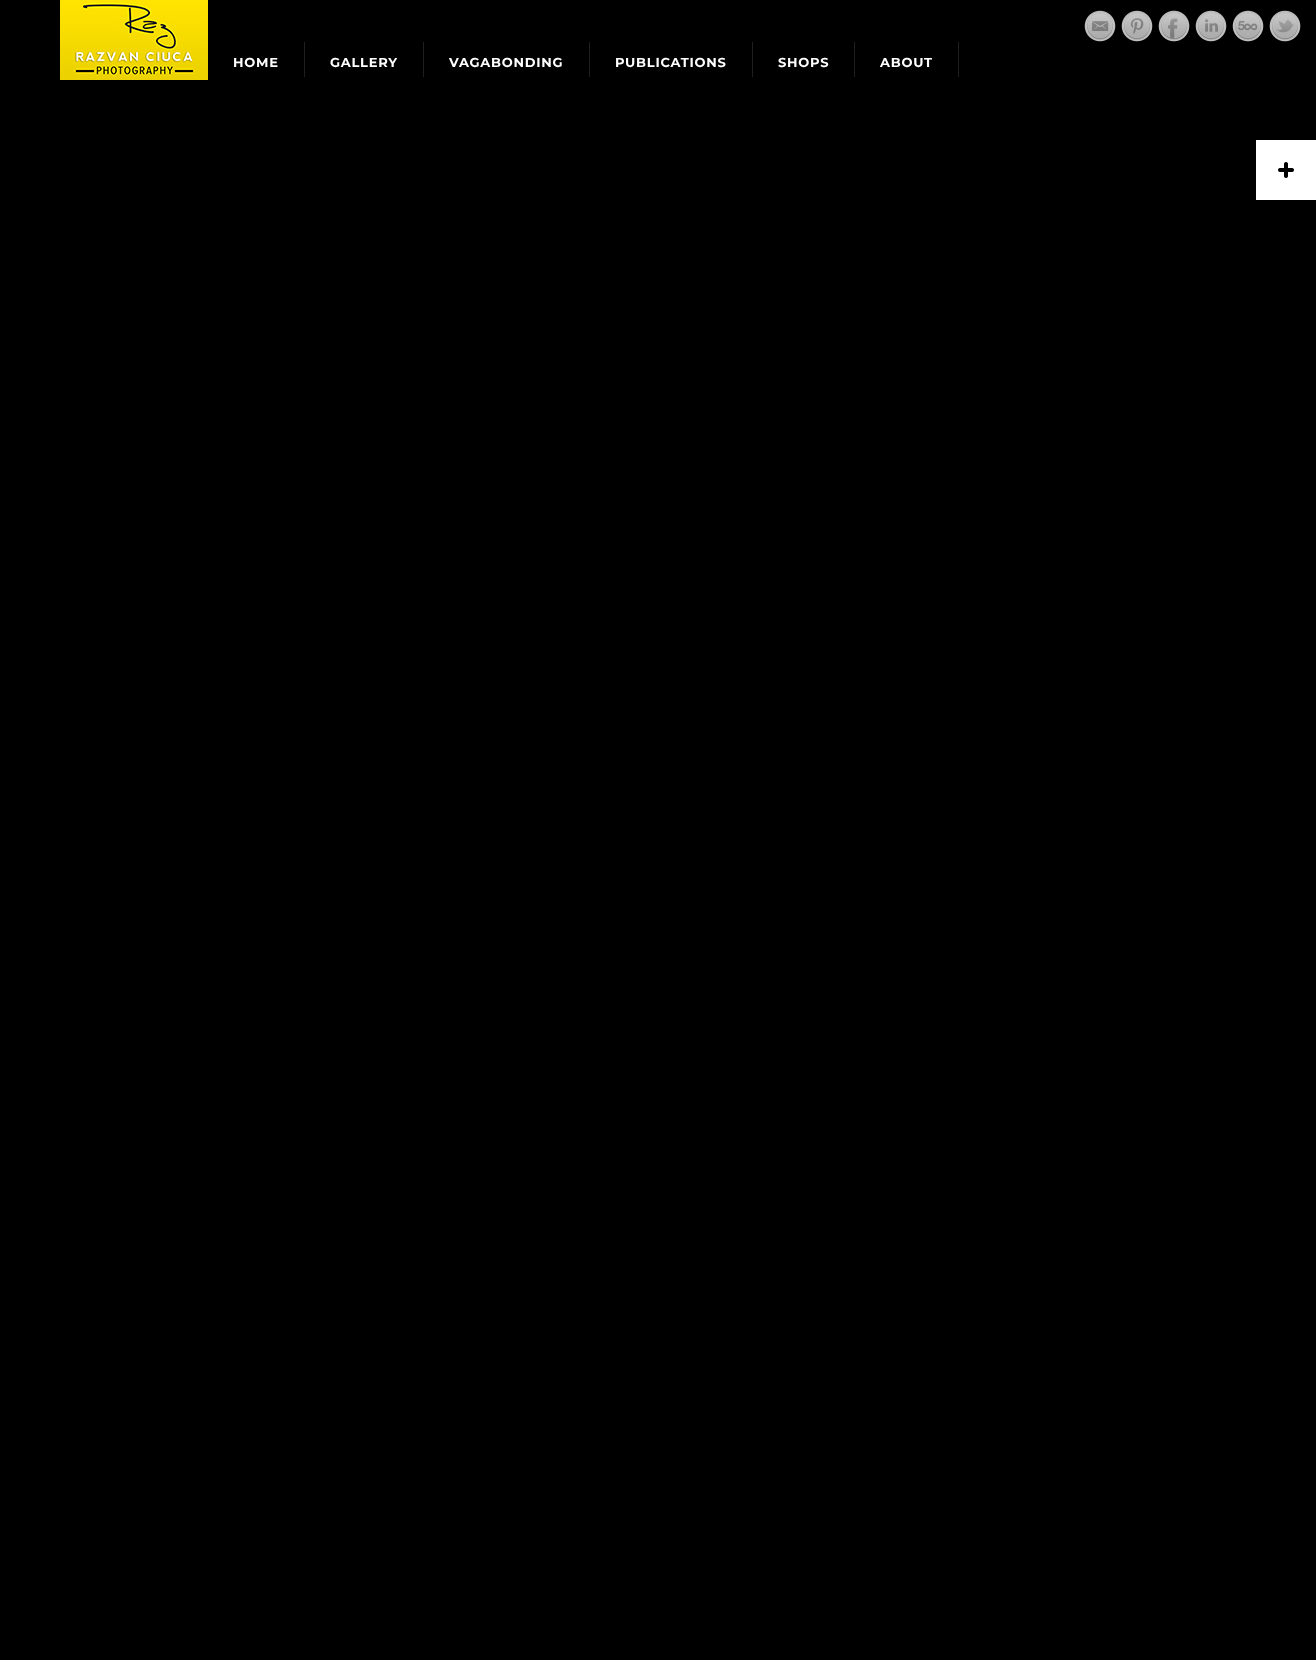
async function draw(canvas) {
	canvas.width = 1316;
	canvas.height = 1660;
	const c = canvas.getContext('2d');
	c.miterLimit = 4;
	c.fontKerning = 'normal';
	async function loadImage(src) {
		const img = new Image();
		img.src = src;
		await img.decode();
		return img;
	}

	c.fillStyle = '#000';
	c.fillRect(0, 0, 1316, 1660);
	c.drawImage(await loadImage('img1.png'), 60, 0, 148, 80);
	c.drawImage(await loadImage('img2.png'), 1084, 10, 32, 32);
	c.drawImage(await loadImage('img3.png'), 1121, 10, 32, 32);
	c.drawImage(await loadImage('img4.png'), 1158, 10, 32, 32);
	c.drawImage(await loadImage('img5.png'), 1195, 10, 32, 32);
	c.drawImage(await loadImage('img6.png'), 1232, 10, 32, 32);
	c.drawImage(await loadImage('img7.png'), 1269, 10, 32, 32);
	c.fillStyle = '#1f1f1f';
	c.fillRect(304, 42, 1, 35);
	c.letterSpacing = '0.75px';
	c.font = 'bold 13px Montserrat';
	c.fillStyle = '#fff';
	c.fillText('HOME', 233, 67);
	c.fillStyle = '#1f1f1f';
	c.fillRect(423, 42, 1, 35);
	c.fillStyle = '#fff';
	c.fillText('GALLERY', 330, 67);
	c.fillStyle = '#1f1f1f';
	c.fillRect(589, 42, 1, 35);
	c.fillStyle = '#fff';
	c.fillText('VAGABONDING', 449, 67);
	c.fillStyle = '#1f1f1f';
	c.fillRect(752, 42, 1, 35);
	c.fillStyle = '#fff';
	c.fillText('PUBLICATIONS', 615, 67);
	c.fillStyle = '#1f1f1f';
	c.fillRect(854, 42, 1, 35);
	c.fillStyle = '#fff';
	c.fillText('SHOPS', 778, 67);
	c.fillStyle = '#1f1f1f';
	c.fillRect(958, 42, 1, 35);
	c.fillStyle = '#fff';
	c.fillText('ABOUT', 880, 67);
	c.fillRect(1256, 140, 60, 60);
	c.drawImage(await loadImage('img8.png'), 1278, 162, 16, 16);
}

draw(document.querySelector('canvas'));
